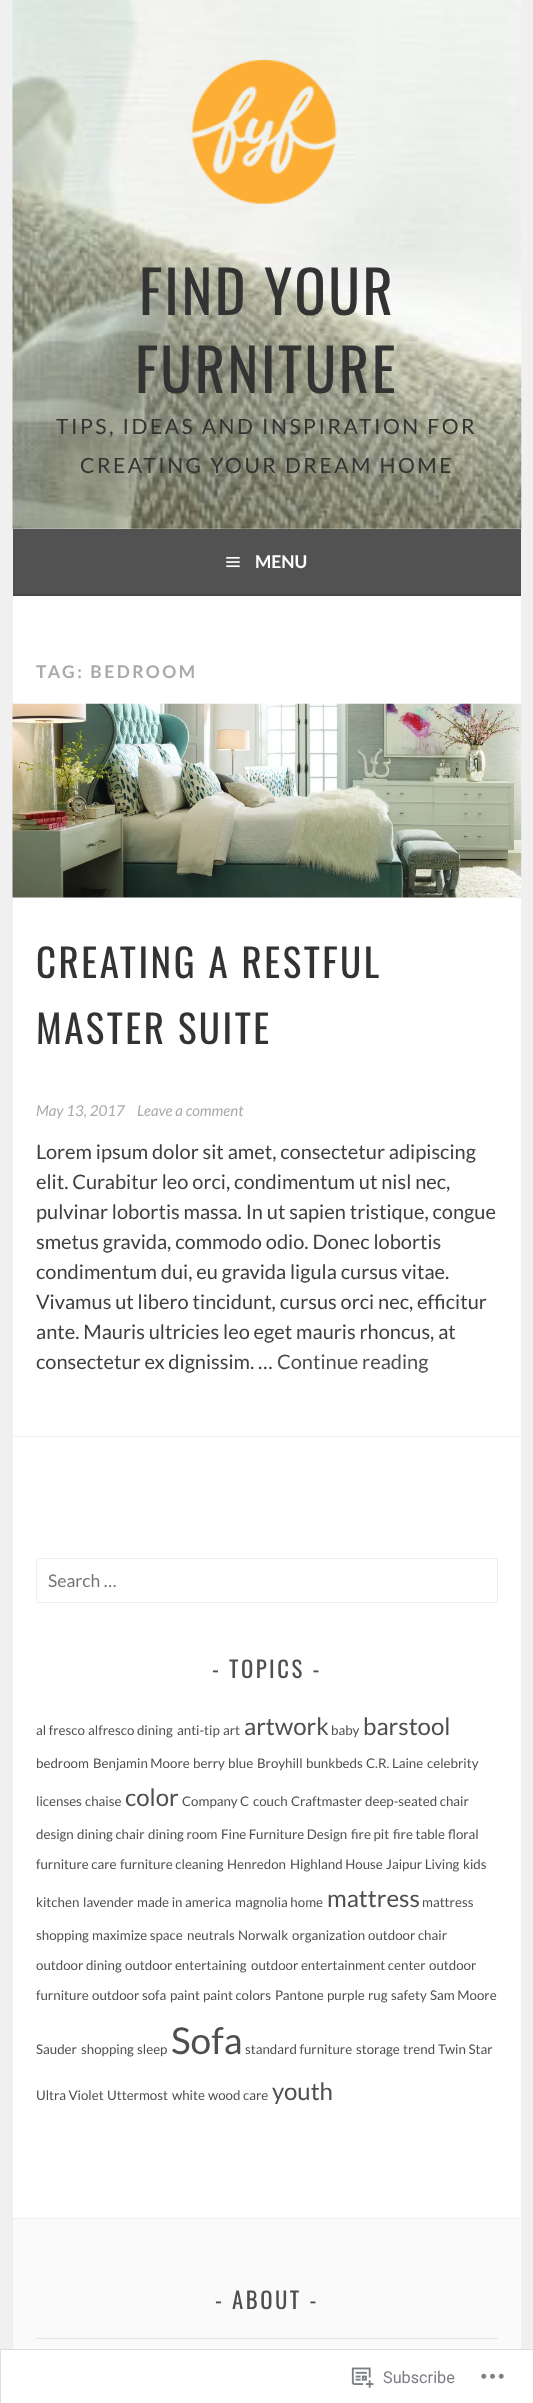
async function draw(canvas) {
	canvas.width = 533;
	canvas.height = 2403;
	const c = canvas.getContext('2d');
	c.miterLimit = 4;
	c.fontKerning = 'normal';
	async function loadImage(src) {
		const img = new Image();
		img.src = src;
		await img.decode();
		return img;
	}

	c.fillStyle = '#f0f0f0';
	c.fillRect(0, 0, 533, 2403);
	c.drawImage(await loadImage('img1.png'), 12, 0, 510, 529);
	c.drawImage(await loadImage('img2.png'), 192, 60, 145, 144);
	c.letterSpacing = '2.5px';
	c.font = '58.5px Oswald';
	c.fillStyle = '#333';
	c.fillText('FIND YOUR', 139, 315);
	c.fillText('FURNITURE', 135, 393);
	c.font = '21.1px Lato';
	c.fillText('TIPS, IDEAS AND INSPIRATION FOR', 56, 434);
	c.fillText('CREATING YOUR DREAM HOME', 80, 473);
	c.fillStyle = '#525252';
	c.fillRect(13, 529, 508, 65);
	c.fillStyle = '#464646';
	c.fillRect(13, 594, 508, 2);
	c.drawImage(await loadImage('img3.png'), 226, 556, 14, 12);
	c.letterSpacing = '0px';
	c.font = 'bold 17.5px Lato';
	c.fillStyle = '#fff';
	c.fillText('MENU', 255, 568);
	c.fillRect(13, 596, 508, 1622);
	c.letterSpacing = '2.5px';
	c.fillStyle = '#aaa';
	c.fillText('TAG: BEDROOM', 36, 678);
	c.fillStyle = '#f8f9f8';
	c.fillRect(13, 897, 508, 1);
	c.drawImage(await loadImage('img4.png'), 12, 703, 510, 195);
	c.font = '39px Oswald';
	c.fillStyle = '#333';
	c.fillText('CREATING A RESTFUL', 36, 978);
	c.fillText('MASTER SUITE', 36, 1044);
	c.letterSpacing = '0px';
	c.font = 'italic 15px Lato';
	c.fillStyle = '#aaa';
	c.fillText('May 13, 2017', 36, 1116);
	c.fillText('Leave a comment', 137, 1116);
	c.font = '20px Lato';
	c.fillStyle = '#404040';
	for (const [text, x, y] of [
		['Lorem ipsum dolor sit amet, consectetur adipiscing', 36, 1159],
		['elit. Curabitur leo orci, condimentum ut nisl nec,', 36, 1189],
		['pulvinar lobortis massa. In ut sapien tristique, congue', 36, 1219],
		['smetus gravida, commodo odio. Donec lobortis', 36, 1249],
		['condimentum dui, eu gravida ligula cursus vitae.', 36, 1279],
		['Vivamus ut libero tincidunt, cursus orci nec, efficitur', 36, 1309],
		['ante. Mauris ultricies leo eget mauris rhoncus, at', 36, 1339],
		['consectetur ex dignissim. …', 36, 1369],
	]) {
		c.fillText(text, x, y);
	}
	c.fillStyle = '#4f4f4f';
	c.fillText('Continue reading', 277, 1369);
	c.fillStyle = '#f2f2f2';
	c.fillRect(13, 1436, 508, 1);
	c.beginPath();
	c.roundRect(36.5, 1558.5, 461, 44, 2);
	c.strokeStyle = '#eee';
	c.stroke();
	c.font = '17.5px Lato';
	c.fillStyle = '#757575';
	c.fillText('Search …', 48, 1587);
	c.letterSpacing = '2.5px';
	c.font = '22.75px Oswald';
	c.fillStyle = '#4f4f4f';
	c.fillText('- TOPICS -', 212, 1678);
	c.letterSpacing = '0px';
	c.font = '13.3px Lato';
	for (const [text, x, y] of [
		['al fresco', 36, 1735],
		['alfresco dining', 88, 1735],
		['anti-tip', 177, 1735],
		['art', 223, 1735],
	]) {
		c.fillText(text, x, y);
	}
	c.font = '24px Lato';
	c.fillText('artwork', 244, 1735);
	c.font = '13.3px Lato';
	c.fillText('baby', 331, 1735);
	c.font = '24px Lato';
	c.fillText('barstool', 363, 1735);
	c.font = '13.3px Lato';
	for (const [text, x, y] of [
		['bedroom', 36, 1768],
		['Benjamin Moore', 93, 1768],
		['berry', 193, 1768],
		['blue', 228, 1768],
		['Broyhill', 257, 1768],
		['bunkbeds', 306, 1768],
		['C.R. Laine', 366, 1768],
		['celebrity', 427, 1768],
		['licenses', 36, 1806],
		['chaise', 85, 1806],
	]) {
		c.fillText(text, x, y);
	}
	c.font = '24px Lato';
	c.fillText('color', 125, 1806);
	c.font = '13.3px Lato';
	for (const [text, x, y] of [
		['Company C', 182, 1806],
		['couch', 253, 1806],
		['Craftmaster', 291, 1806],
		['deep-seated chair', 365, 1806],
		['design', 36, 1839],
		['dining chair', 77, 1839],
		['dining room', 148, 1839],
		['Fine Furniture Design', 221, 1839],
		['fire pit', 351, 1839],
		['fire table', 393, 1839],
		['floral', 448, 1839],
		['furniture care', 36, 1869],
		['furniture cleaning', 120, 1869],
		['Henredon', 227, 1869],
		['Highland House', 290, 1869],
		['Jaipur Living', 386, 1869],
		['kids', 463, 1869],
		['kitchen', 36, 1907],
		['lavender', 83, 1907],
		['made in america', 137, 1907],
		['magnolia home', 235, 1907],
	]) {
		c.fillText(text, x, y);
	}
	c.font = '24px Lato';
	c.fillText('mattress', 327, 1907);
	c.font = '13.3px Lato';
	for (const [text, x, y] of [
		['mattress', 422, 1907],
		['shopping', 36, 1940],
		['maximize space', 92, 1940],
		['neutrals', 187, 1940],
		['Norwalk', 238, 1940],
		['organization', 292, 1940],
		['outdoor chair', 368, 1940],
		['outdoor dining', 36, 1970],
		['outdoor entertaining', 125, 1970],
		['outdoor entertainment center', 251, 1970],
		['outdoor', 429, 1970],
		['furniture', 36, 2000],
		['outdoor sofa', 92, 2000],
		['paint', 170, 2000],
		['paint colors', 203, 2000],
		['Pantone', 275, 2000],
		['purple', 327, 2000],
		['rug', 368, 2000],
		['safety', 391, 2000],
		['Sam Moore', 430, 2000],
		['Sauder', 36, 2054],
		['shopping', 81, 2054],
		['sleep', 137, 2054],
	]) {
		c.fillText(text, x, y);
	}
	c.font = '37px Lato';
	c.fillText('Sofa', 171, 2054);
	c.font = '13.3px Lato';
	for (const [text, x, y] of [
		['standard furniture', 245, 2054],
		['storage', 356, 2054],
		['trend', 403, 2054],
		['Twin Star', 438, 2054],
		['Ultra Violet', 36, 2100],
		['Uttermost', 107, 2100],
		['white', 172, 2100],
		['wood care', 208, 2100],
	]) {
		c.fillText(text, x, y);
	}
	c.font = '24px Lato';
	c.fillText('youth', 272, 2100);
	c.fillStyle = '#fafafa';
	c.fillRect(13, 2219, 508, 130);
	c.letterSpacing = '2.5px';
	c.font = '22.75px Oswald';
	c.fillStyle = '#4f4f4f';
	c.fillText('- ABOUT -', 215, 2309);
	c.fillStyle = '#e5e5e5';
	c.fillRect(36, 2338, 462, 1);
	c.fillStyle = '#fff';
	c.beginPath();
	c.rect(0.5, 2349.5, 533, 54);
	c.fill();
	c.strokeStyle = '#dddddf';
	c.stroke();
	c.drawImage(await loadImage('img5.png'), 351, 2367, 23, 21);
	c.letterSpacing = '0px';
	c.font = '16.25px Roboto';
	c.fillStyle = '#7b7f84';
	c.fillText('Subscribe', 383, 2383);
	c.drawImage(await loadImage('img6.png'), 481, 2373, 23, 6);
}

draw(document.querySelector('canvas'));
